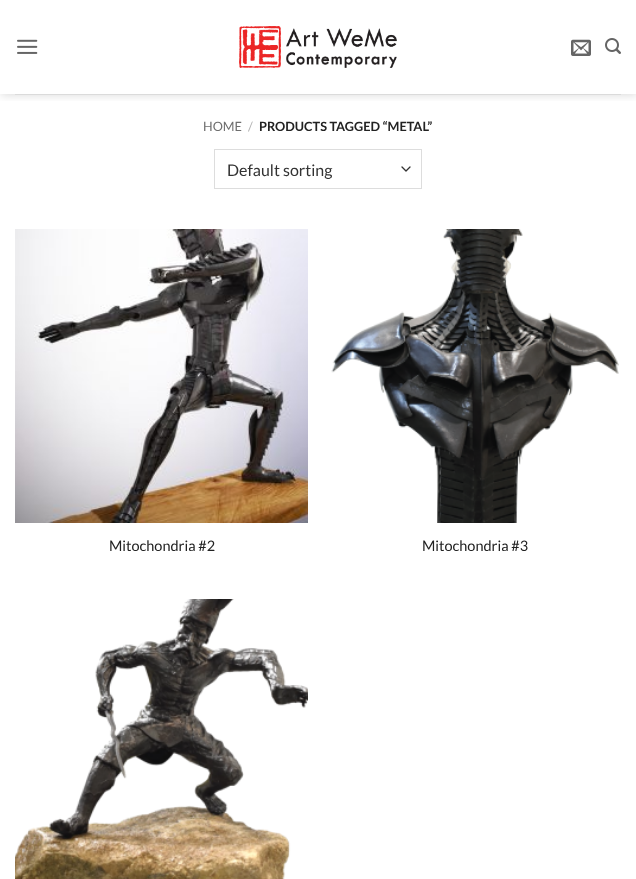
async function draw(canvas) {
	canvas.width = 636;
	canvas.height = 879;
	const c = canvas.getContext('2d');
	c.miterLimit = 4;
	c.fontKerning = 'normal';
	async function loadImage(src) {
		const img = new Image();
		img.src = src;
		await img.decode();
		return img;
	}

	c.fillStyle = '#fff';
	c.fillRect(0, 0, 636, 879);
	c.save();
	c.beginPath();
	c.rect(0, 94, 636, 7);
	c.clip();
	c.fillStyle = '#00000026';
	c.filter = 'blur(5px)';
	c.beginPath();
	c.rect(1, 1, 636, 94);
	c.fill();
	c.filter = 'none';
	c.restore();
	c.drawImage(await loadImage('img1.png'), 17, 39, 21, 15);
	c.drawImage(await loadImage('img2.png'), 239, 26, 158, 42);
	c.drawImage(await loadImage('img3.png'), 571, 39, 20, 17);
	c.drawImage(await loadImage('img4.png'), 605, 38, 16, 16);
	c.fillStyle = '#dbdbdb';
	c.fillRect(15, 94, 606, 1);
	c.font = '12.75px Lato';
	c.fillStyle = '#6e6e6e';
	c.fillText('HOME', 203, 131);
	c.fillStyle = '#b2b2b2';
	c.fillText('/', 248, 131);
	c.font = 'bold 12.75px Lato';
	c.fillStyle = '#222';
	c.fillText('PRODUCTS TAGGED “METAL”', 259, 131);
	c.beginPath();
	c.moveTo(402, 167);
	c.lineTo(406, 171);
	c.lineTo(410, 167);
	c.strokeStyle = '#333';
	c.lineWidth = 1.3;
	c.lineCap = 'round';
	c.lineJoin = 'round';
	c.stroke();
	c.strokeStyle = '#ddd';
	c.lineWidth = 1;
	c.lineJoin = 'miter';
	c.strokeRect(214.5, 149.5, 207, 39);
	c.font = '16px Lato';
	c.fillStyle = '#333';
	c.fillText('Default sorting', 227, 176);
	c.drawImage(await loadImage('img5.png'), 15, 229, 293, 294);
	c.font = '14.5px Lato';
	c.fillStyle = '#222';
	c.fillText('Mitochondria #2', 109, 551);
	c.drawImage(await loadImage('img6.png'), 331, 229, 288, 294);
	c.fillText('Mitochondria #3', 422, 551);
	c.drawImage(await loadImage('img7.png'), 15, 599, 293, 280);
}

draw(document.querySelector('canvas'));
